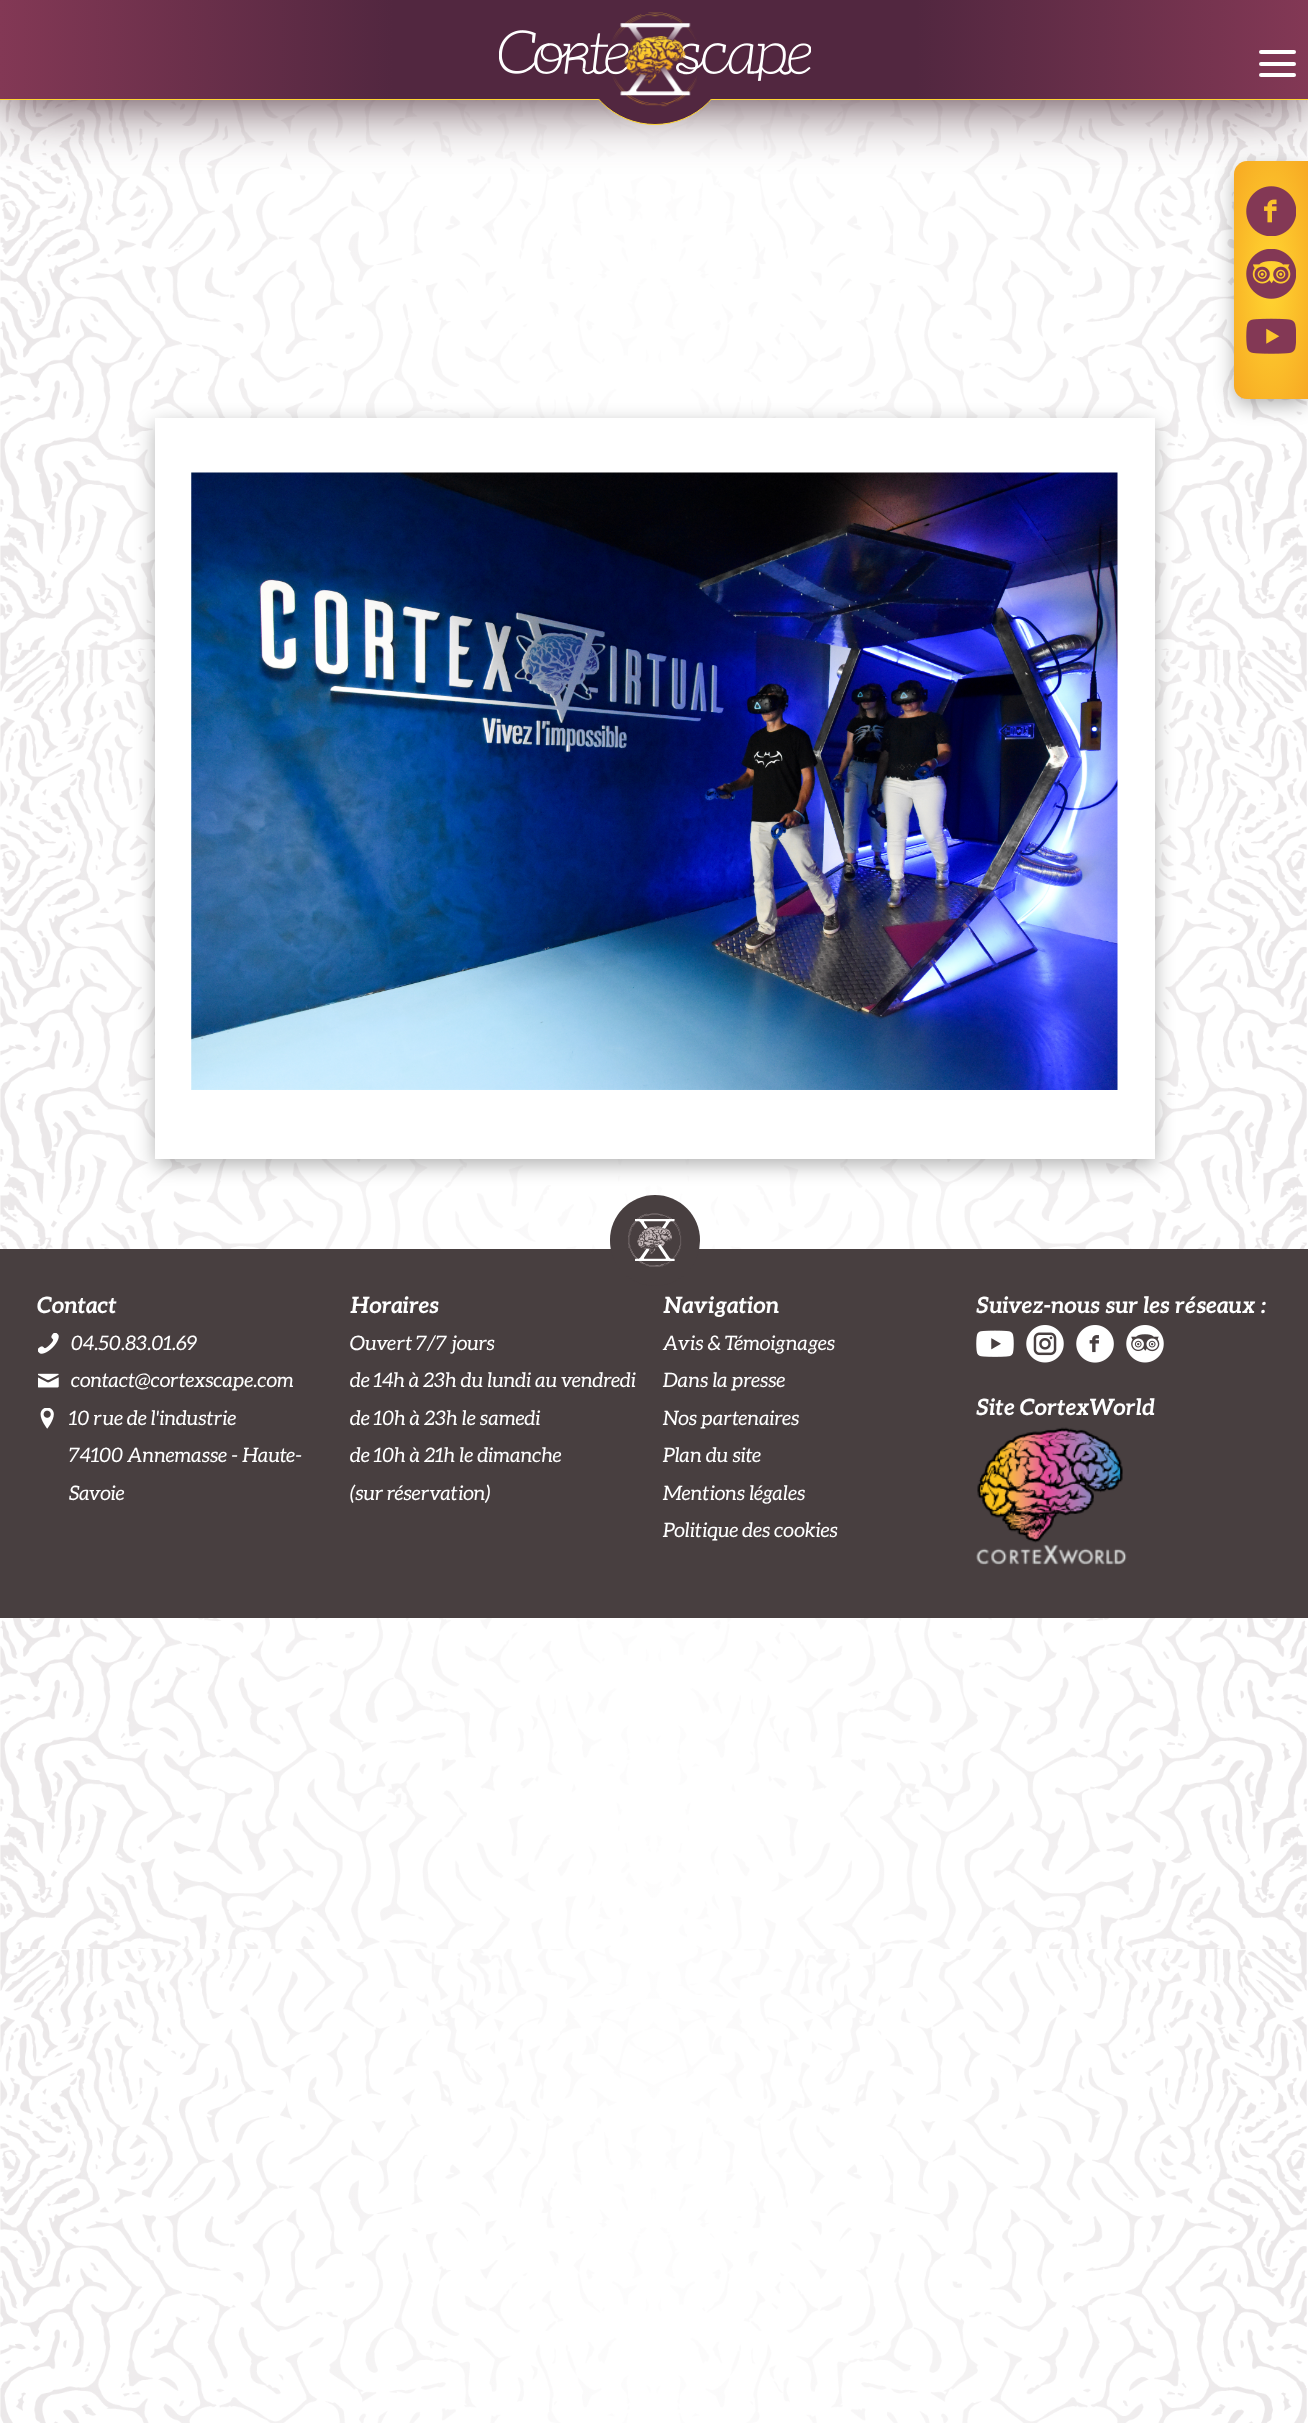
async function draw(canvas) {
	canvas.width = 1308;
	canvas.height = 2423;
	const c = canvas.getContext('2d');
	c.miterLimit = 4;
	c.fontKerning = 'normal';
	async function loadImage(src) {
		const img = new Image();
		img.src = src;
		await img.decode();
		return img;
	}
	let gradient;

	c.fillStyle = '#fff';
	c.fillRect(0, 0, 1308, 2423);
	c.drawImage(await loadImage('img6.png'), 0, 100, 1307, 2323);
	gradient = c.createLinearGradient(0, 1212, 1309, 1212);
	gradient.addColorStop(0, '#ffffff00');
	gradient.addColorStop(0.5, '#ffffffe6');
	gradient.addColorStop(1, '#ffffff00');
	c.fillStyle = gradient;
	c.fillRect(81, 100, 1147, 2323);
	c.fillStyle = '#3e1e29';
	c.filter = 'blur(31px)';
	c.beginPath();
	c.rect(0, 0, 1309, 100);
	c.fill();
	c.filter = 'none';
	gradient = c.createLinearGradient(0, 49, 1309, 49);
	gradient.addColorStop(0, '#833855');
	gradient.addColorStop(0.3, '#522740');
	gradient.addColorStop(0.7, '#522740');
	gradient.addColorStop(1, '#833855');
	c.fillStyle = gradient;
	c.fillRect(0, 0, 1308, 99);
	c.fillStyle = '#ffd631';
	c.fillRect(0, 99, 1308, 1);
	c.fillStyle = '#522740';
	c.beginPath();
	c.arc(655, 49, 75.5, 0, 2 * Math.PI);
	c.fill();
	c.strokeStyle = '#ffd631';
	c.stroke();
	c.fillRect(579, 0, 152, 99);
	c.drawImage(await loadImage('img2.png'), 499, 30, 312, 51);
	c.drawImage(await loadImage('img1.png'), 612, 12, 85, 95);
	c.fillStyle = '#fff';
	c.beginPath();
	c.roundRect(1259, 50, 37, 4, 2);
	c.fill();
	c.beginPath();
	c.roundRect(1259, 62, 37, 4, 2);
	c.fill();
	c.beginPath();
	c.roundRect(1259, 73, 37, 4, 2);
	c.fill();
	c.fillStyle = '#0000004d';
	c.filter = 'blur(9.5px)';
	c.beginPath();
	c.roundRect(1234, 168, 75, 237, 13);
	c.fill();
	c.filter = 'none';
	gradient = c.createRadialGradient(1271, 88.33, 0, 1271, 88.33, 53);
	gradient.addColorStop(0, '#ffd631');
	gradient.addColorStop(1, '#f7a823');
	c.fillStyle = gradient;
	c.beginPath();
	c.moveTo(1247, 161);
	c.lineTo(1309, 161);
	c.lineTo(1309, 399);
	c.lineTo(1247, 399);
	c.bezierCurveTo(1240, 399, 1234, 393, 1234, 386);
	c.lineTo(1234, 174);
	c.bezierCurveTo(1234, 167, 1240, 161, 1247, 161);
	c.closePath();
	c.save();
	c.clip();
	c.scale(1, 168 / 53);
	c.fillRect(0, 0, 1308, 765);
	c.restore();
	c.drawImage(await loadImage('img3.png'), 1246, 186, 50, 50);
	c.drawImage(await loadImage('img4.png'), 1246, 249, 50, 50);
	c.drawImage(await loadImage('img5.png'), 1246, 318, 50, 36);
	c.fillStyle = '#0000004d';
	c.filter = 'blur(9.5px)';
	c.beginPath();
	c.rect(155, 424, 1000, 741);
	c.fill();
	c.filter = 'none';
	c.fillStyle = '#fff';
	c.fillRect(155, 418, 1000, 741);
	c.drawImage(await loadImage('img7.png'), 191, 472, 927, 618);
	c.fillStyle = '#483f40';
	c.fillRect(0, 1249, 1308, 369);
	c.beginPath();
	c.roundRect(610, 1195, 90, 91, 45);
	c.fill();
	c.drawImage(await loadImage('img8.png'), 628, 1213, 54, 54);
	c.font = 'italic bold 22.5px Aleo';
	c.fillStyle = '#fff';
	c.fillText('Contact', 37, 1313);
	c.drawImage(await loadImage('img9.png'), 38, 1333, 21, 21);
	c.font = 'italic 20px Aleo';
	c.fillText('04.50.83.01.69', 71, 1350);
	c.drawImage(await loadImage('img10.png'), 38, 1373, 21, 15);
	c.fillText('contact@cortexscape.com', 71, 1387);
	c.drawImage(await loadImage('img11.png'), 40, 1408, 14, 21);
	for (const [text, x, y] of [
		['10 rue de l\'industrie', 69, 1425],
		['74100 Annemasse - Haute-', 69, 1462],
		['Savoie', 69, 1500],
	]) {
		c.fillText(text, x, y);
	}
	c.font = 'italic bold 22.5px Aleo';
	c.fillText('Horaires', 350, 1313);
	c.font = 'italic 20px Aleo';
	for (const [text, x, y] of [
		['Ouvert 7/7 jours', 350, 1350],
		['de 14h à 23h du lundi au vendredi', 350, 1387],
		['de 10h à 23h le samedi', 350, 1425],
		['de 10h à 21h le dimanche', 350, 1462],
		['(sur réservation)', 350, 1500],
	]) {
		c.fillText(text, x, y);
	}
	c.font = 'italic bold 22.5px Aleo';
	c.fillText('Navigation', 663, 1313);
	c.font = 'italic 20px Aleo';
	for (const [text, x, y] of [
		['Avis & Témoignages', 663, 1350],
		['Dans la presse', 663, 1387],
		['Nos partenaires', 663, 1425],
		['Plan du site', 663, 1462],
		['Mentions légales', 663, 1500],
		['Politique des cookies', 663, 1537],
	]) {
		c.fillText(text, x, y);
	}
	c.font = 'italic bold 22.5px Aleo';
	c.fillText('Suivez-nous sur les réseaux :', 976, 1313);
	c.drawImage(await loadImage('img12.png'), 976, 1330, 38, 27);
	c.drawImage(await loadImage('img13.png'), 1026, 1325, 38, 38);
	c.drawImage(await loadImage('img14.png'), 1076, 1325, 38, 38);
	c.drawImage(await loadImage('img15.png'), 1126, 1325, 38, 38);
	c.fillText('Site CortexWorld', 976, 1415);
	c.drawImage(await loadImage('img16.png'), 976, 1427, 151, 138);
}

draw(document.querySelector('canvas'));
